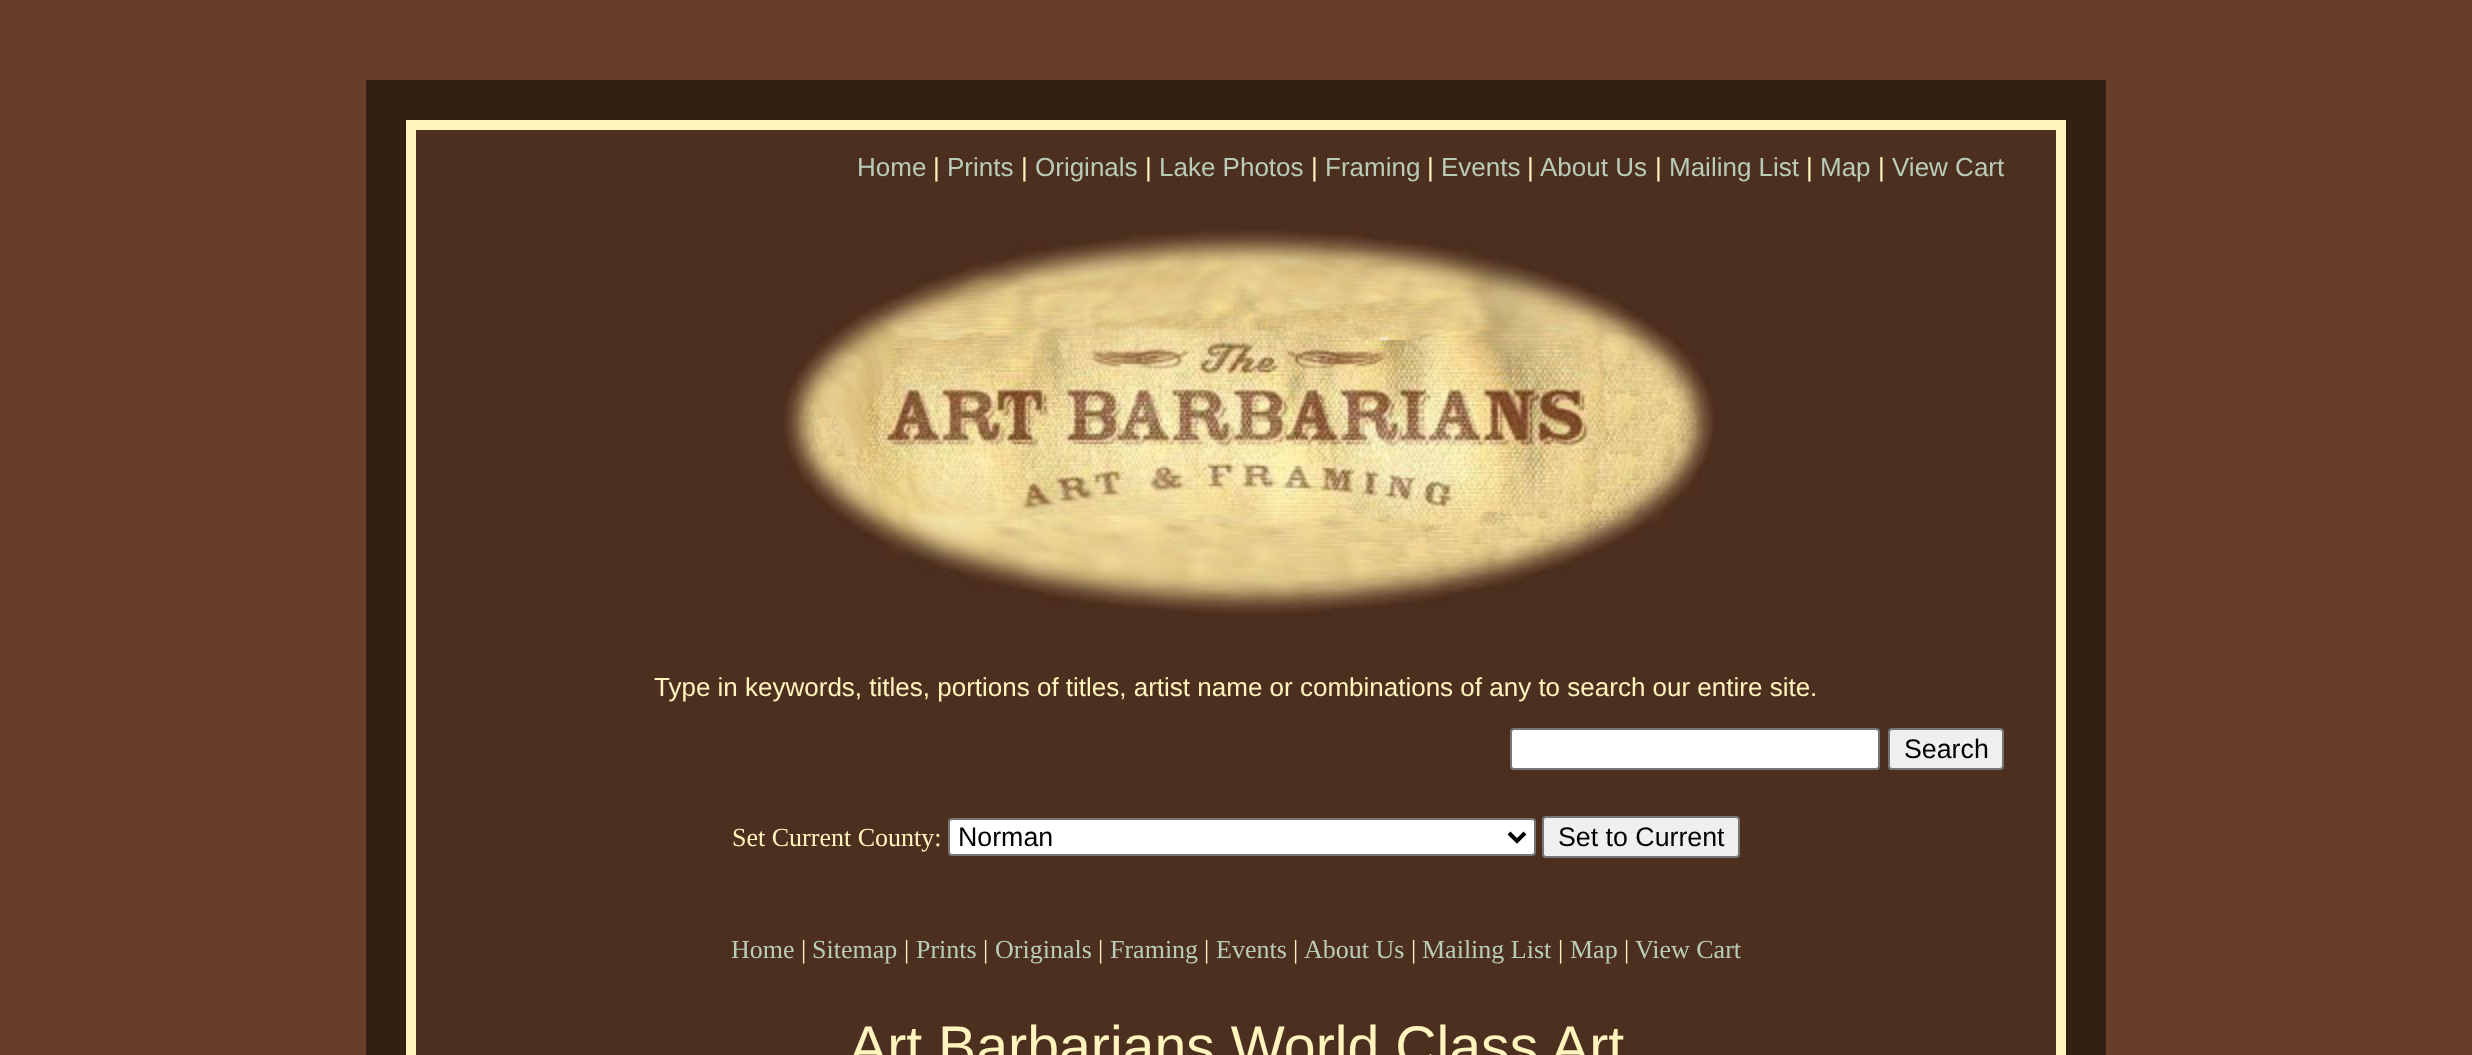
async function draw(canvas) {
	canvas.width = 2472;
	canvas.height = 1055;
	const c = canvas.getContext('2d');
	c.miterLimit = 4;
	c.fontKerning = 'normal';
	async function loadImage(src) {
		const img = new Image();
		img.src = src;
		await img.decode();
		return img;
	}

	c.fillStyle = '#663e29';
	c.fillRect(0, 0, 2472, 1055);
	c.fillStyle = '#331f14';
	c.fillRect(366, 80, 1740, 975);
	c.fillStyle = '#4d2f1f';
	c.beginPath();
	c.rect(411, 125, 1650, 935);
	c.fill();
	c.strokeStyle = '#fff4bd';
	c.lineWidth = 10;
	c.stroke();
	c.font = '26px Liberation Sans';
	c.fillStyle = '#b8ccb8';
	c.fillText('Home', 857, 176);
	c.fillStyle = '#fff4bd';
	c.fillText('|', 933, 176);
	c.fillStyle = '#b8ccb8';
	c.fillText('Prints', 947, 176);
	c.fillStyle = '#fff4bd';
	c.fillText('|', 1021, 176);
	c.fillStyle = '#b8ccb8';
	c.fillText('Originals', 1035, 176);
	c.fillStyle = '#fff4bd';
	c.fillText('|', 1145, 176);
	c.fillStyle = '#b8ccb8';
	c.fillText('Lake Photos', 1159, 176);
	c.fillStyle = '#fff4bd';
	c.fillText('|', 1311, 176);
	c.fillStyle = '#b8ccb8';
	c.fillText('Framing', 1325, 176);
	c.fillStyle = '#fff4bd';
	c.fillText('|', 1427, 176);
	c.fillStyle = '#b8ccb8';
	c.fillText('Events', 1441, 176);
	c.fillStyle = '#fff4bd';
	c.fillText('|', 1527, 176);
	c.fillStyle = '#b8ccb8';
	c.fillText('About Us', 1540, 176);
	c.fillStyle = '#fff4bd';
	c.fillText('|', 1655, 176);
	c.fillStyle = '#b8ccb8';
	c.fillText('Mailing List', 1669, 176);
	c.fillStyle = '#fff4bd';
	c.fillText('|', 1806, 176);
	c.fillStyle = '#b8ccb8';
	c.fillText('Map', 1820, 176);
	c.fillStyle = '#fff4bd';
	c.fillText('|', 1878, 176);
	c.fillStyle = '#b8ccb8';
	c.fillText('View Cart', 1892, 176);
	c.drawImage(await loadImage('img1.png'), 783, 230, 932, 386);
	c.fillStyle = '#fff4bd';
	c.fillText('Type in keywords, titles, portions of titles, artist name or combinations of any to search our entire site.', 654, 696);
	c.fillStyle = '#fff';
	c.beginPath();
	c.roundRect(1511, 729, 368, 40, 3);
	c.fill();
	c.strokeStyle = '#767676';
	c.lineWidth = 2;
	c.stroke();
	c.fillStyle = '#efefef';
	c.beginPath();
	c.roundRect(1889, 729, 114, 40, 3);
	c.fill();
	c.stroke();
	c.font = '26.75px Liberation Sans';
	c.fillStyle = '#000';
	c.fillText('Search', 1904, 758);
	c.font = '26px Liberation Serif';
	c.fillStyle = '#fff4bd';
	c.fillText('Set Current County:', 732, 846);
	c.fillStyle = '#fff';
	c.beginPath();
	c.roundRect(949, 819, 586, 36, 3);
	c.fill();
	c.stroke();
	c.beginPath();
	c.moveTo(1509, 833);
	c.lineTo(1517, 841);
	c.lineTo(1525, 833);
	c.strokeStyle = '#000';
	c.lineWidth = 4;
	c.stroke();
	c.font = '26.75px Liberation Sans';
	c.fillStyle = '#000';
	c.fillText('Norman', 958, 846);
	c.fillStyle = '#efefef';
	c.beginPath();
	c.roundRect(1543, 817, 196, 40, 3);
	c.fill();
	c.strokeStyle = '#767676';
	c.lineWidth = 2;
	c.stroke();
	c.fillStyle = '#000';
	c.fillText('Set to Current', 1558, 846);
	c.font = '26px Liberation Serif';
	c.fillStyle = '#b8ccb8';
	c.fillText('Home', 731, 958);
	c.fillStyle = '#fff4bd';
	c.fillText('|', 801, 958);
	c.fillStyle = '#b8ccb8';
	c.fillText('Sitemap', 812, 958);
	c.fillStyle = '#fff4bd';
	c.fillText('|', 904, 958);
	c.fillStyle = '#b8ccb8';
	c.fillText('Prints', 916, 958);
	c.fillStyle = '#fff4bd';
	c.fillText('|', 983, 958);
	c.fillStyle = '#b8ccb8';
	c.fillText('Originals', 995, 958);
	c.fillStyle = '#fff4bd';
	c.fillText('|', 1098, 958);
	c.fillStyle = '#b8ccb8';
	c.fillText('Framing', 1110, 958);
	c.fillStyle = '#fff4bd';
	c.fillText('|', 1204, 958);
	c.fillStyle = '#b8ccb8';
	c.fillText('Events', 1216, 958);
	c.fillStyle = '#fff4bd';
	c.fillText('|', 1293, 958);
	c.fillStyle = '#b8ccb8';
	c.fillText('About Us', 1304, 958);
	c.fillStyle = '#fff4bd';
	c.fillText('|', 1411, 958);
	c.fillStyle = '#b8ccb8';
	c.fillText('Mailing List', 1422, 958);
	c.fillStyle = '#fff4bd';
	c.fillText('|', 1558, 958);
	c.fillStyle = '#b8ccb8';
	c.fillText('Map', 1570, 958);
	c.fillStyle = '#fff4bd';
	c.fillText('|', 1624, 958);
	c.fillStyle = '#b8ccb8';
	c.fillText('View Cart', 1635, 958);
	c.font = '57.25px Liberation Sans';
	c.fillStyle = '#fff4bd';
	c.fillText('Art Barbarians World Class Art', 849, 1066);
}

draw(document.querySelector('canvas'));
